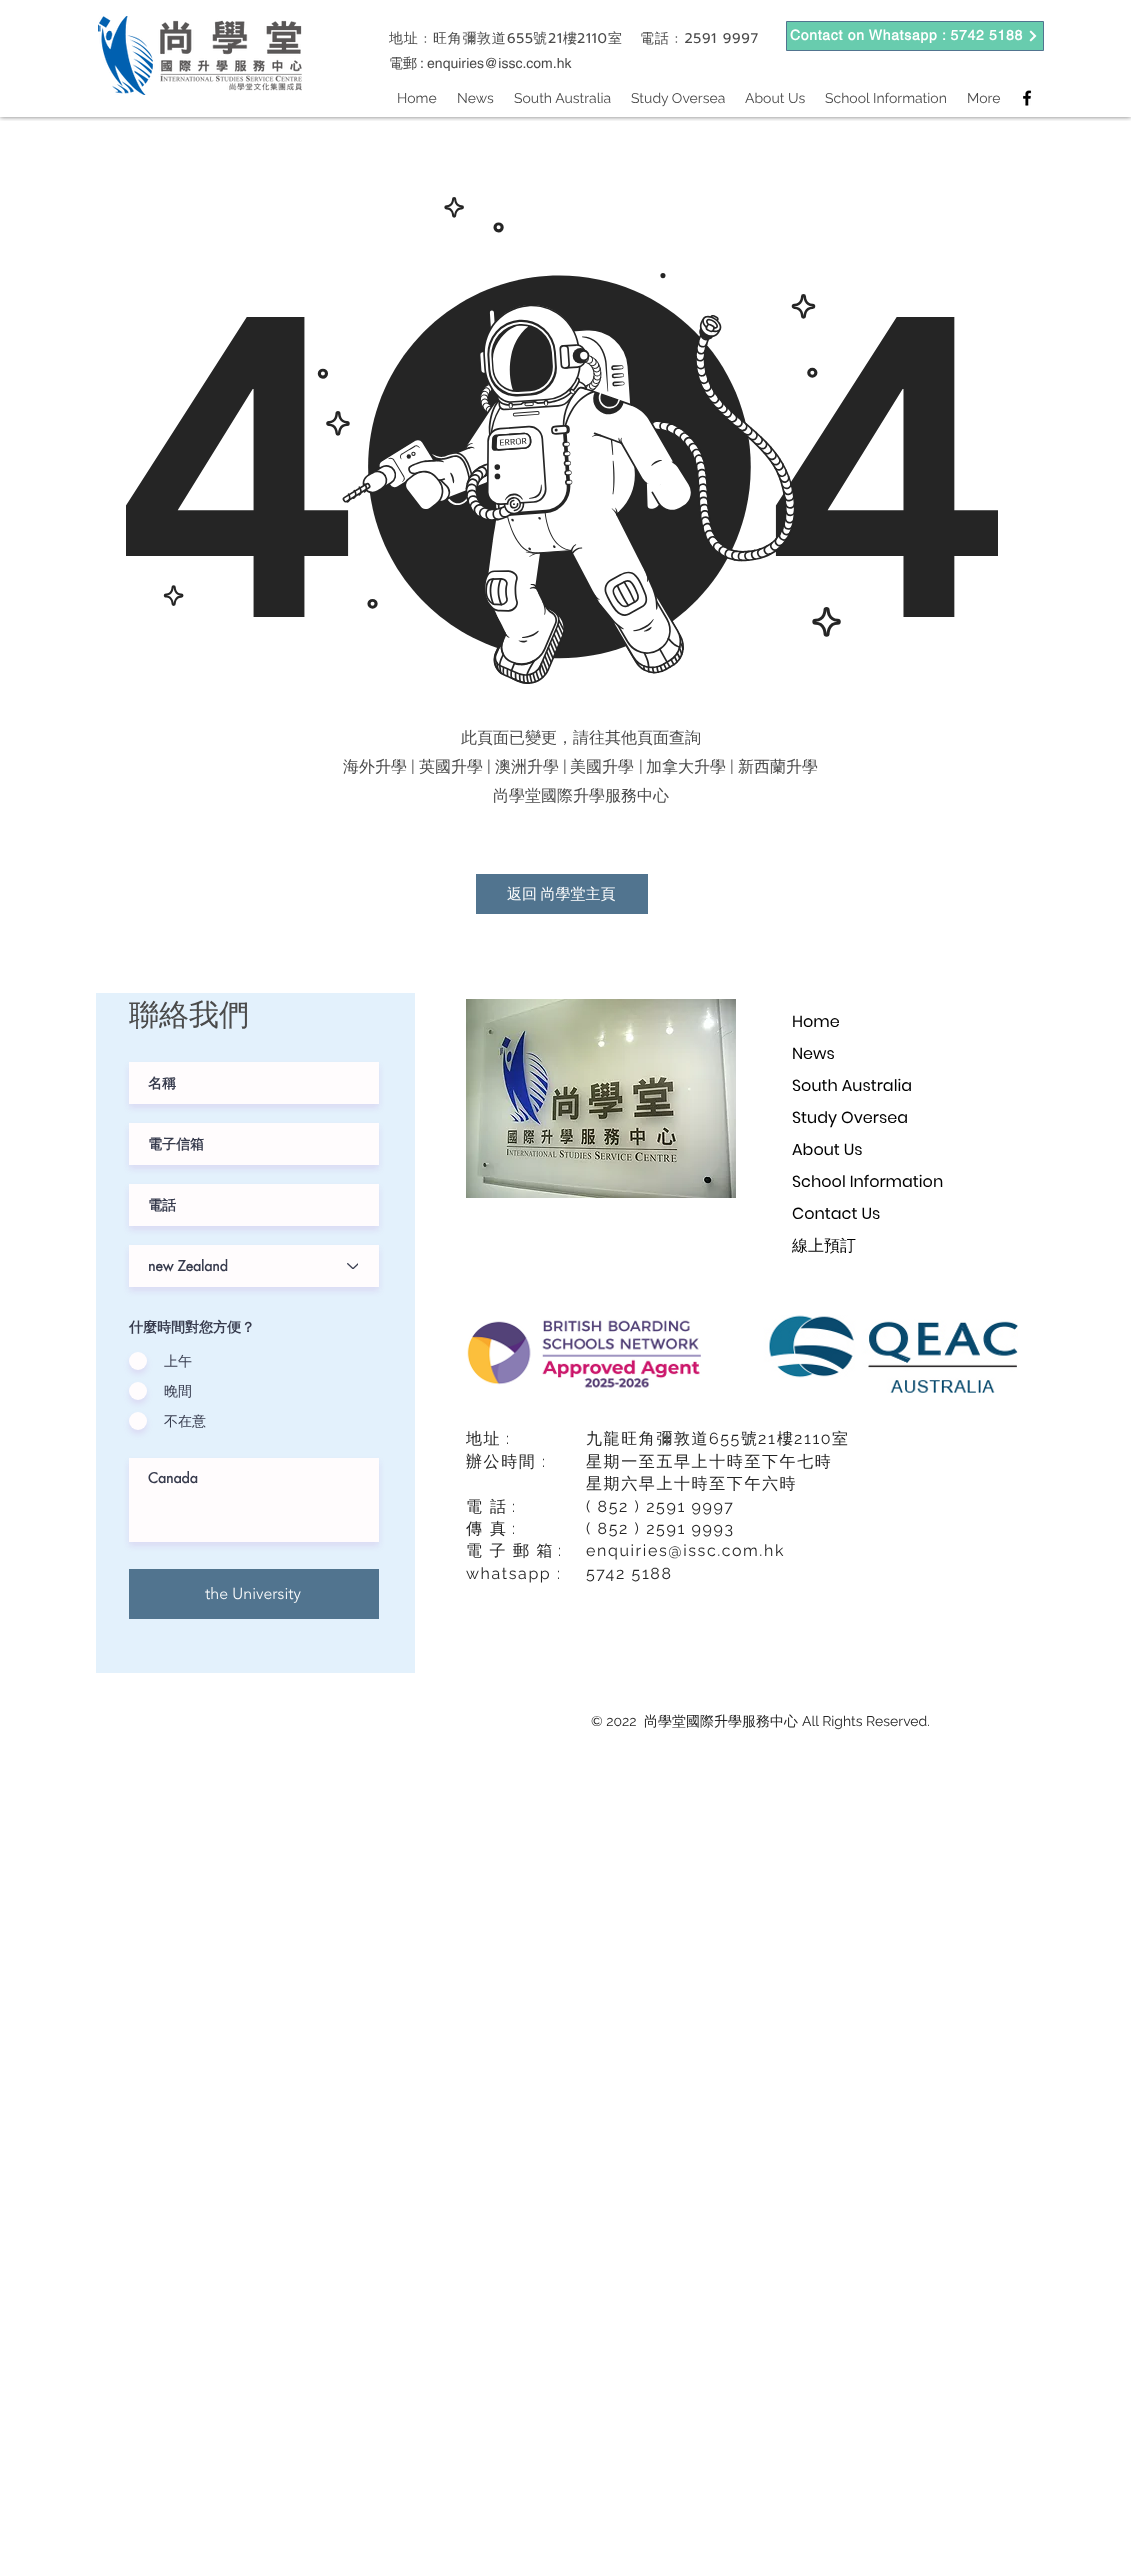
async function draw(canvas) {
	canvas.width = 1131;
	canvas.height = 2555;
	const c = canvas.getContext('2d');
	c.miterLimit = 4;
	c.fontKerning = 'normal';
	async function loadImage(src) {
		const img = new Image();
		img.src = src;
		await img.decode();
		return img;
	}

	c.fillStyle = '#fff';
	c.fillRect(0, 0, 1131, 2555);
	c.save();
	c.beginPath();
	c.rect(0, 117, 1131, 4);
	c.clip();
	c.fillStyle = '#0000008a';
	c.filter = 'blur(2.5px)';
	c.beginPath();
	c.rect(0, 0, 1131, 117);
	c.fill();
	c.filter = 'none';
	c.restore();
	c.drawImage(await loadImage('img1.png'), 98, 16, 204, 79);
	c.letterSpacing = '0.7px';
	c.font = '500 14px WenQuanYi Zen Hei';
	c.fillStyle = '#4a4a4a';
	c.fillText('地址', 389, 43);
	c.font = '14px Prompt';
	c.fillText(':', 424, 43);
	c.font = '500 14px WenQuanYi Zen Hei';
	c.fillText('旺角彌敦道', 433, 43);
	c.font = '14px Prompt';
	c.fillText('655', 507, 43);
	c.font = '500 14px WenQuanYi Zen Hei';
	c.fillText('號', 533, 43);
	c.font = '14px Prompt';
	c.fillText('21', 548, 43);
	c.font = '500 14px WenQuanYi Zen Hei';
	c.fillText('樓', 563, 43);
	c.font = '14px Prompt';
	c.fillText('2110', 577, 43);
	c.font = '500 14px WenQuanYi Zen Hei';
	c.fillText('室', 608, 43);
	c.fillText('電話', 640, 43);
	c.font = '14px Prompt';
	c.fillText(': 2591 9997', 675, 43);
	c.letterSpacing = '0px';
	c.font = '500 14px WenQuanYi Zen Hei';
	c.fillText('電郵', 389, 68);
	c.font = '14px helvetica';
	c.fillText(': enquiries@issc.com.hk', 420, 68);
	c.fillStyle = '#68ccae';
	c.beginPath();
	c.rect(786.5, 21.5, 257, 29);
	c.fill();
	c.strokeStyle = '#51748f';
	c.stroke();
	c.letterSpacing = '0.7px';
	c.font = 'bold 14px helvetica';
	c.fillStyle = '#fff';
	c.fillText('Contact on Whatsapp : 5742 5188', 790, 40);
	c.drawImage(await loadImage('img2.png'), 1029, 30, 8, 12);
	c.letterSpacing = '0px';
	c.font = '14px Raleway';
	c.fillStyle = '#4a4a4a';
	for (const [text, x, y] of [
		['Home', 397, 103],
		['News', 457, 103],
		['South Australia', 514, 103],
		['Study Oversea', 631, 103],
		['About Us', 745, 103],
		['School Information', 825, 103],
		['More', 967, 103],
	]) {
		c.fillText(text, x, y);
	}
	c.drawImage(await loadImage('img3.png'), 1023, 90, 9, 16);
	c.drawImage(await loadImage('img4.png'), 126, 197, 872, 487);
	c.font = '500 16px WenQuanYi Zen Hei';
	c.fillText('此頁面已變更，請往其他頁面查詢', 461, 743);
	c.fillText('海外升學', 343, 772);
	c.font = '16px Raleway';
	c.fillText('|', 411, 772);
	c.font = '500 16px WenQuanYi Zen Hei';
	c.fillText('英國升學', 419, 772);
	c.font = '16px Raleway';
	c.fillText('|', 487, 772);
	c.font = '500 16px WenQuanYi Zen Hei';
	c.fillText('澳洲升學', 495, 772);
	c.font = '16px Raleway';
	c.fillText('|', 563, 772);
	c.font = '500 16px WenQuanYi Zen Hei';
	c.fillText('美國升學', 570, 772);
	c.font = '16px Raleway';
	c.fillText('|', 639, 772);
	c.font = '500 16px WenQuanYi Zen Hei';
	c.fillText('加拿大升學', 646, 772);
	c.font = '16px Raleway';
	c.fillText('|', 730, 772);
	c.font = '500 16px WenQuanYi Zen Hei';
	c.fillText('新西蘭升學', 738, 772);
	c.fillText('尚學堂國際升學服務中心', 493, 801);
	c.fillStyle = '#51748f';
	c.fillRect(476, 874, 172, 40);
	c.wordSpacing = '-1px';
	c.font = '500 15px WenQuanYi Zen Hei';
	c.fillStyle = '#fff';
	c.fillText('返回 尚學堂主頁', 507, 899);
	c.fillStyle = '#e3f1fc';
	c.fillRect(96, 993, 319, 680);
	c.wordSpacing = '0px';
	c.font = '500 30px WenQuanYi Zen Hei';
	c.fillStyle = '#4a4a4a';
	c.fillText('聯絡我們', 129, 1025);
	c.fillStyle = '#9818a31a';
	c.filter = 'blur(3px)';
	c.beginPath();
	c.rect(129, 1066, 250, 42);
	c.fill();
	c.filter = 'none';
	c.fillStyle = '#fffcfd';
	c.fillRect(129, 1062, 250, 42);
	c.font = 'bold 14px WenQuanYi Zen Hei';
	c.fillStyle = '#373b4d';
	c.fillText('名稱', 148, 1088);
	c.fillStyle = '#9818a31a';
	c.filter = 'blur(3px)';
	c.beginPath();
	c.rect(129, 1127, 250, 42);
	c.fill();
	c.filter = 'none';
	c.fillStyle = '#fffcfd';
	c.fillRect(129, 1123, 250, 42);
	c.fillStyle = '#373b4d';
	c.fillText('電子信箱', 148, 1149);
	c.fillStyle = '#9818a31a';
	c.filter = 'blur(3px)';
	c.beginPath();
	c.rect(129, 1188, 250, 42);
	c.fill();
	c.filter = 'none';
	c.fillStyle = '#fffcfd';
	c.fillRect(129, 1184, 250, 42);
	c.fillStyle = '#373b4d';
	c.fillText('電話', 148, 1210);
	c.fillStyle = '#9818a31a';
	c.filter = 'blur(3px)';
	c.beginPath();
	c.rect(129, 1249, 250, 42);
	c.fill();
	c.filter = 'none';
	c.fillStyle = '#fffcfd';
	c.fillRect(129, 1245, 250, 42);
	c.font = 'bold 14px futura';
	c.fillStyle = '#373b4d';
	c.fillText('new Zealand', 148, 1271);
	c.drawImage(await loadImage('img5.png'), 347, 1263, 11, 6);
	c.font = 'bold 14px WenQuanYi Zen Hei';
	c.fillText('什麼時間對您方便？', 129, 1332);
	c.fillStyle = '#9818a31a';
	c.filter = 'blur(3px)';
	c.beginPath();
	c.roundRect(129, 1356, 18, 18, 9);
	c.fill();
	c.filter = 'none';
	c.fillStyle = '#fffcfd';
	c.beginPath();
	c.arc(138, 1361, 9, 0, 2 * Math.PI);
	c.fill();
	c.font = '500 14px WenQuanYi Zen Hei';
	c.fillStyle = '#373b4d';
	c.fillText('上午', 164, 1366);
	c.fillStyle = '#9818a31a';
	c.filter = 'blur(3px)';
	c.beginPath();
	c.roundRect(129, 1386, 18, 18, 9);
	c.fill();
	c.filter = 'none';
	c.fillStyle = '#fffcfd';
	c.beginPath();
	c.arc(138, 1391, 9, 0, 2 * Math.PI);
	c.fill();
	c.fillStyle = '#373b4d';
	c.fillText('晚間', 164, 1396);
	c.fillStyle = '#9818a31a';
	c.filter = 'blur(3px)';
	c.beginPath();
	c.roundRect(129, 1416, 18, 18, 9);
	c.fill();
	c.filter = 'none';
	c.fillStyle = '#fffcfd';
	c.beginPath();
	c.arc(138, 1421, 9, 0, 2 * Math.PI);
	c.fill();
	c.fillStyle = '#373b4d';
	c.fillText('不在意', 164, 1426);
	c.fillStyle = '#9818a31a';
	c.filter = 'blur(3px)';
	c.beginPath();
	c.rect(129, 1462, 250, 84);
	c.fill();
	c.filter = 'none';
	c.fillStyle = '#fffcfd';
	c.fillRect(129, 1458, 250, 84);
	c.font = 'bold 14px futura';
	c.fillStyle = '#373b4d';
	c.fillText('Canada', 148, 1483);
	c.fillStyle = '#51748f';
	c.fillRect(129, 1569, 250, 50);
	c.font = '300 16px "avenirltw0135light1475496"';
	c.fillStyle = '#fff';
	c.fillText('the University', 205, 1599);
	c.drawImage(await loadImage('img6.png'), 466, 999, 270, 199);
	c.font = '16px Poppins';
	c.fillStyle = '#000';
	for (const [text, x, y] of [
		['Home', 792, 1027],
		['News', 792, 1059],
		['South Australia', 792, 1091],
		['Study Oversea', 792, 1123],
		['About Us', 792, 1155],
		['School Information', 792, 1187],
		['Contact Us', 792, 1219],
	]) {
		c.fillText(text, x, y);
	}
	c.font = '500 16px WenQuanYi Zen Hei';
	c.fillText('線上預訂', 792, 1251);
	c.drawImage(await loadImage('img7.png'), 467, 1315, 551, 78);
	c.letterSpacing = '1.6px';
	c.fillStyle = '#252525';
	c.fillText('地址', 466, 1444);
	c.font = '16px Raleway';
	c.fillText(':', 506, 1444);
	c.font = '500 16px WenQuanYi Zen Hei';
	c.fillText('辦公時間', 466, 1467);
	c.font = '16px Raleway';
	c.fillText(':', 542, 1467);
	c.font = '500 16px WenQuanYi Zen Hei';
	c.fillText('電 話', 466, 1512);
	c.font = '16px Raleway';
	c.fillText(':', 512, 1512);
	c.font = '500 16px WenQuanYi Zen Hei';
	c.fillText('傳 真', 466, 1534);
	c.font = '16px Raleway';
	c.fillText(':', 512, 1534);
	c.wordSpacing = '-0.5px';
	c.font = '500 16px WenQuanYi Zen Hei';
	c.fillText('電 子 郵 箱', 466, 1556);
	c.wordSpacing = '0px';
	c.font = '16px Raleway';
	c.fillText(':', 558, 1556);
	c.fillText('whatsapp :', 466, 1579);
	c.font = '500 16px WenQuanYi Zen Hei';
	c.fillText('九龍旺角彌敦道', 586, 1444);
	c.font = '16px Raleway';
	c.fillText('655', 709, 1444);
	c.font = '500 16px WenQuanYi Zen Hei';
	c.fillText('號', 741, 1444);
	c.font = '16px Raleway';
	c.fillText('21', 758, 1444);
	c.font = '500 16px WenQuanYi Zen Hei';
	c.fillText('樓', 777, 1444);
	c.font = '16px Raleway';
	c.fillText('2110', 794, 1444);
	c.font = '500 16px WenQuanYi Zen Hei';
	for (const [text, x, y] of [
		['室', 832, 1444],
		['星期一至五早上十時至下午七時', 586, 1467],
		['星期六早上十時至下午六時', 586, 1489],
	]) {
		c.fillText(text, x, y);
	}
	c.font = '16px Raleway';
	for (const [text, x, y] of [
		['( 852 ) 2591 9997', 586, 1512],
		['( 852 ) 2591 9993', 586, 1534],
		['enquiries@issc.com.hk', 586, 1556],
		['5742 5188', 586, 1579],
	]) {
		c.fillText(text, x, y);
	}
	c.letterSpacing = '0px';
	c.font = '14px Raleway';
	c.fillText('© 2022', 591, 1726);
	c.font = '500 14px WenQuanYi Zen Hei';
	c.fillText('尚學堂國際升學服務中心', 644, 1726);
	c.font = '14px Raleway';
	c.fillText('All Rights Reserved.', 802, 1726);
}

draw(document.querySelector('canvas'));
